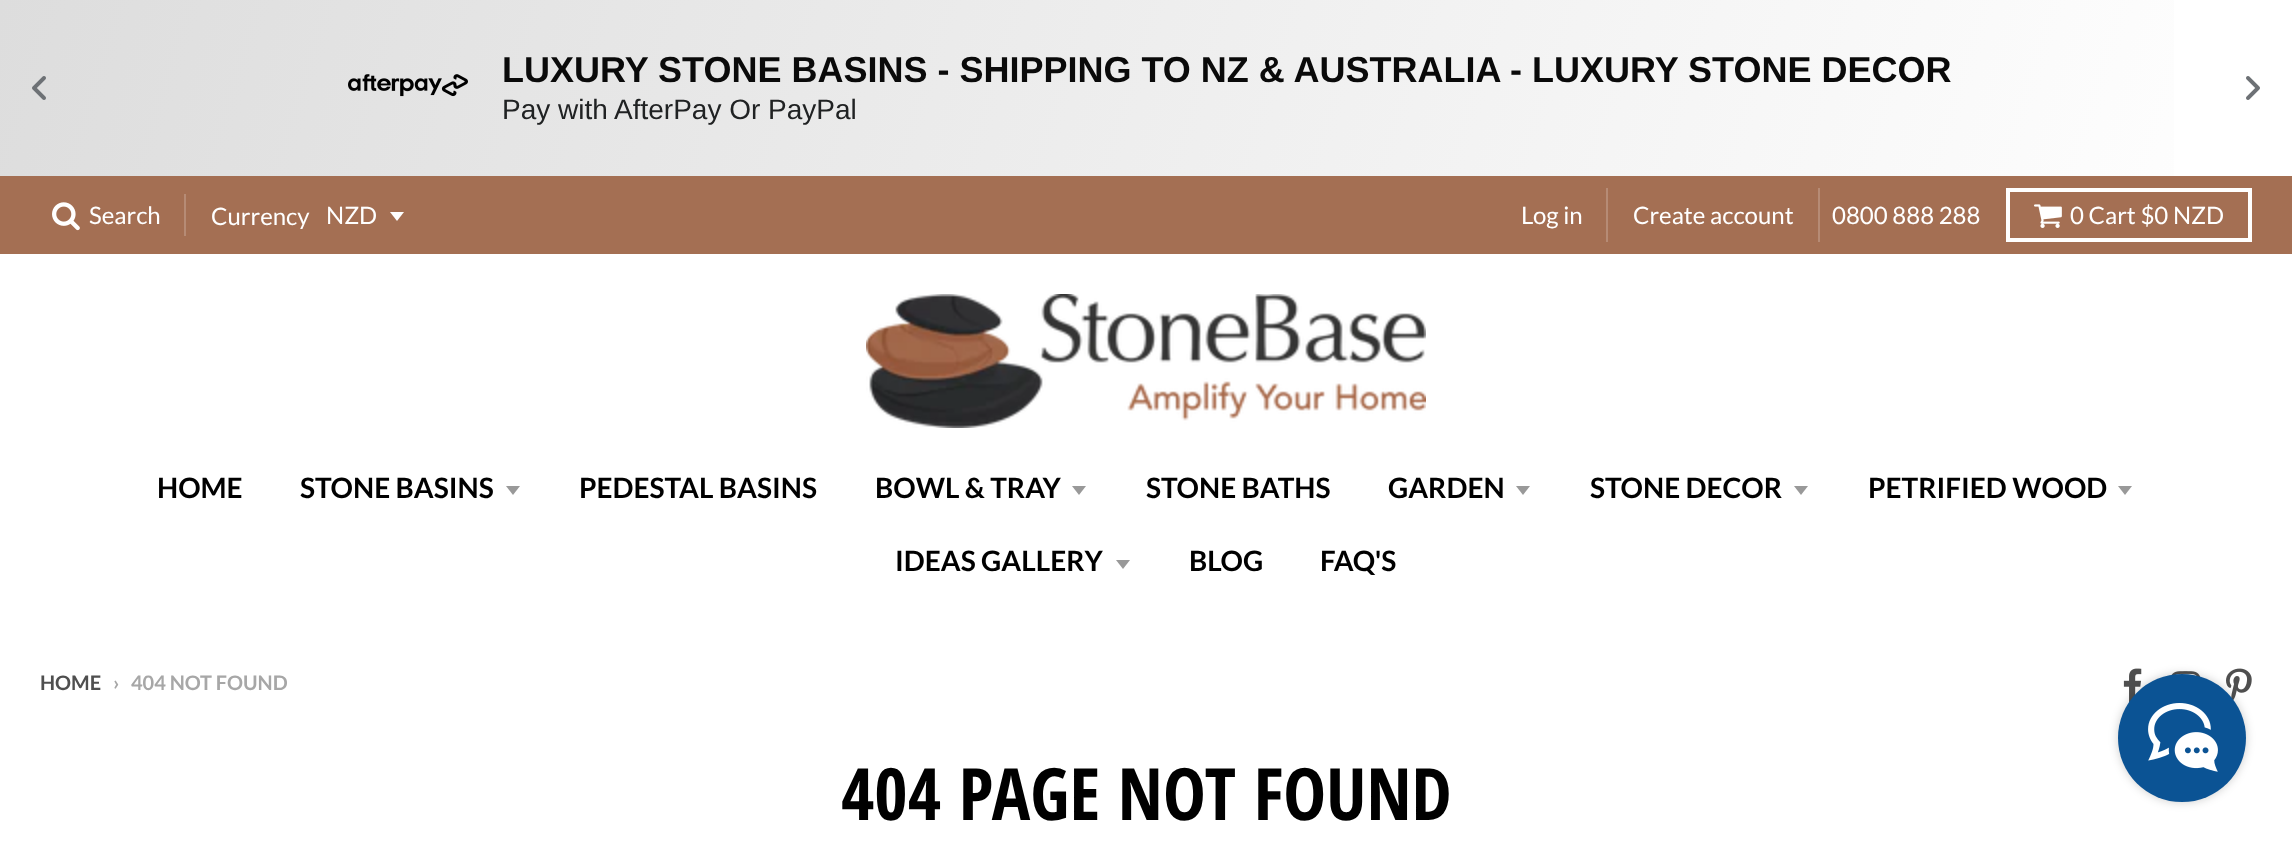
async function draw(canvas) {
	canvas.width = 2292;
	canvas.height = 841;
	const c = canvas.getContext('2d');
	c.miterLimit = 4;
	c.fontKerning = 'normal';
	async function loadImage(src) {
		const img = new Image();
		img.src = src;
		await img.decode();
		return img;
	}
	let gradient;

	c.fillStyle = '#fff';
	c.fillRect(0, 0, 2292, 841);
	gradient = c.createLinearGradient(73, -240, 2219, 416);
	gradient.addColorStop(0, '#ddd');
	gradient.addColorStop(1, '#fff');
	c.fillStyle = gradient;
	c.fillRect(0, 0, 2174, 176);
	c.drawImage(await loadImage('img1.png'), 348, 74, 120, 23);
	c.font = 'bold 36px Liberation Sans';
	c.fillStyle = '#0a0a0a';
	c.fillText('LUXURY STONE BASINS - SHIPPING TO NZ & AUSTRALIA - LUXURY STONE DECOR', 502, 82);
	c.font = '28px Liberation Sans';
	c.fillStyle = '#202223';
	c.fillText('Pay with AfterPay Or PayPal', 502, 119);
	c.drawImage(await loadImage('img2.png'), 32, 76, 14, 24);
	c.drawImage(await loadImage('img3.png'), 2246, 76, 14, 24);
	c.fillStyle = '#a46f53';
	c.fillRect(0, 176, 2292, 78);
	c.drawImage(await loadImage('img4.png'), 52, 202, 28, 29);
	c.font = '24px Lato';
	c.fillStyle = '#fff';
	c.fillText('Search', 89, 224);
	c.fillStyle = '#b68b75';
	c.fillRect(184, 194, 2, 42);
	c.fillStyle = '#fff';
	c.fillText('Currency', 211, 225);
	c.beginPath();
	c.moveTo(390, 212);
	c.lineTo(397, 221);
	c.lineTo(404, 212);
	c.closePath();
	c.fill();
	c.fillText('NZD', 326, 224);
	c.fillStyle = '#b68b75';
	c.fillRect(1606, 188, 2, 54);
	c.fillStyle = '#fff';
	c.fillText('Log in', 1521, 224);
	c.fillStyle = '#b68b75';
	c.fillRect(1818, 188, 2, 54);
	c.fillStyle = '#fff';
	c.fillText('Create account', 1633, 224);
	c.fillText('0800 888 288', 1832, 224);
	c.strokeStyle = '#fff';
	c.lineWidth = 4;
	c.strokeRect(2008, 190, 242, 50);
	c.drawImage(await loadImage('img5.png'), 2034, 204, 28, 24);
	c.fillText('0 Cart $0 NZD', 2070, 224);
	c.drawImage(await loadImage('img6.png'), 866, 294, 560, 134);
	c.font = 'bold 28px Lato';
	c.fillStyle = '#000';
	c.fillText('HOME', 157, 498);
	c.fillText('STONE BASINS', 300, 498);
	c.fillStyle = '#999';
	c.beginPath();
	c.moveTo(506, 486);
	c.lineTo(513, 495);
	c.lineTo(520, 486);
	c.closePath();
	c.fill();
	c.fillStyle = '#000';
	c.fillText('PEDESTAL BASINS', 579, 498);
	c.fillText('BOWL & TRAY', 875, 498);
	c.fillStyle = '#999';
	c.beginPath();
	c.moveTo(1072, 486);
	c.lineTo(1079, 495);
	c.lineTo(1086, 486);
	c.closePath();
	c.fill();
	c.fillStyle = '#000';
	c.fillText('STONE BATHS', 1146, 498);
	c.fillText('GARDEN', 1388, 498);
	c.fillStyle = '#999';
	c.beginPath();
	c.moveTo(1516, 486);
	c.lineTo(1523, 495);
	c.lineTo(1530, 486);
	c.closePath();
	c.fill();
	c.fillStyle = '#000';
	c.fillText('STONE DECOR', 1590, 498);
	c.fillStyle = '#999';
	c.beginPath();
	c.moveTo(1794, 486);
	c.lineTo(1801, 495);
	c.lineTo(1808, 486);
	c.closePath();
	c.fill();
	c.fillStyle = '#000';
	c.fillText('PETRIFIED WOOD', 1868, 498);
	c.fillStyle = '#999';
	c.beginPath();
	c.moveTo(2118, 486);
	c.lineTo(2125, 495);
	c.lineTo(2132, 486);
	c.closePath();
	c.fill();
	c.fillStyle = '#000';
	c.fillText('IDEAS GALLERY', 895, 571);
	c.fillStyle = '#999';
	c.beginPath();
	c.moveTo(1116, 560);
	c.lineTo(1123, 569);
	c.lineTo(1130, 560);
	c.closePath();
	c.fill();
	c.fillStyle = '#000';
	c.fillText('BLOG', 1189, 571);
	c.fillText('FAQ\'S', 1320, 571);
	c.font = 'bold 20px Lato';
	c.fillStyle = '#4f4f4f';
	c.fillText('HOME', 40, 690);
	c.fillStyle = '#a7a7a7';
	c.fillText('›', 113, 690);
	c.fillText('404 NOT FOUND', 131, 690);
	c.drawImage(await loadImage('img7.png'), 2123, 668, 19, 34);
	c.drawImage(await loadImage('img8.png'), 2171, 671, 30, 6);
	c.drawImage(await loadImage('img9.png'), 2226, 668, 26, 33);
	c.font = 'bold 72px Open Sans Condensed';
	c.fillStyle = '#000';
	c.fillText('404 PAGE NOT FOUND', 841, 820);
	c.fillStyle = '#00000033';
	c.filter = 'blur(5px)';
	c.beginPath();
	c.roundRect(2118, 674, 128, 128, 64);
	c.fill();
	c.filter = 'none';
	c.fillStyle = '#0b5394';
	c.beginPath();
	c.arc(2182, 738, 64, 0, 2 * Math.PI);
	c.fill();
	c.drawImage(await loadImage('img10.png'), 2148, 703, 70, 69);
}

draw(document.querySelector('canvas'));
